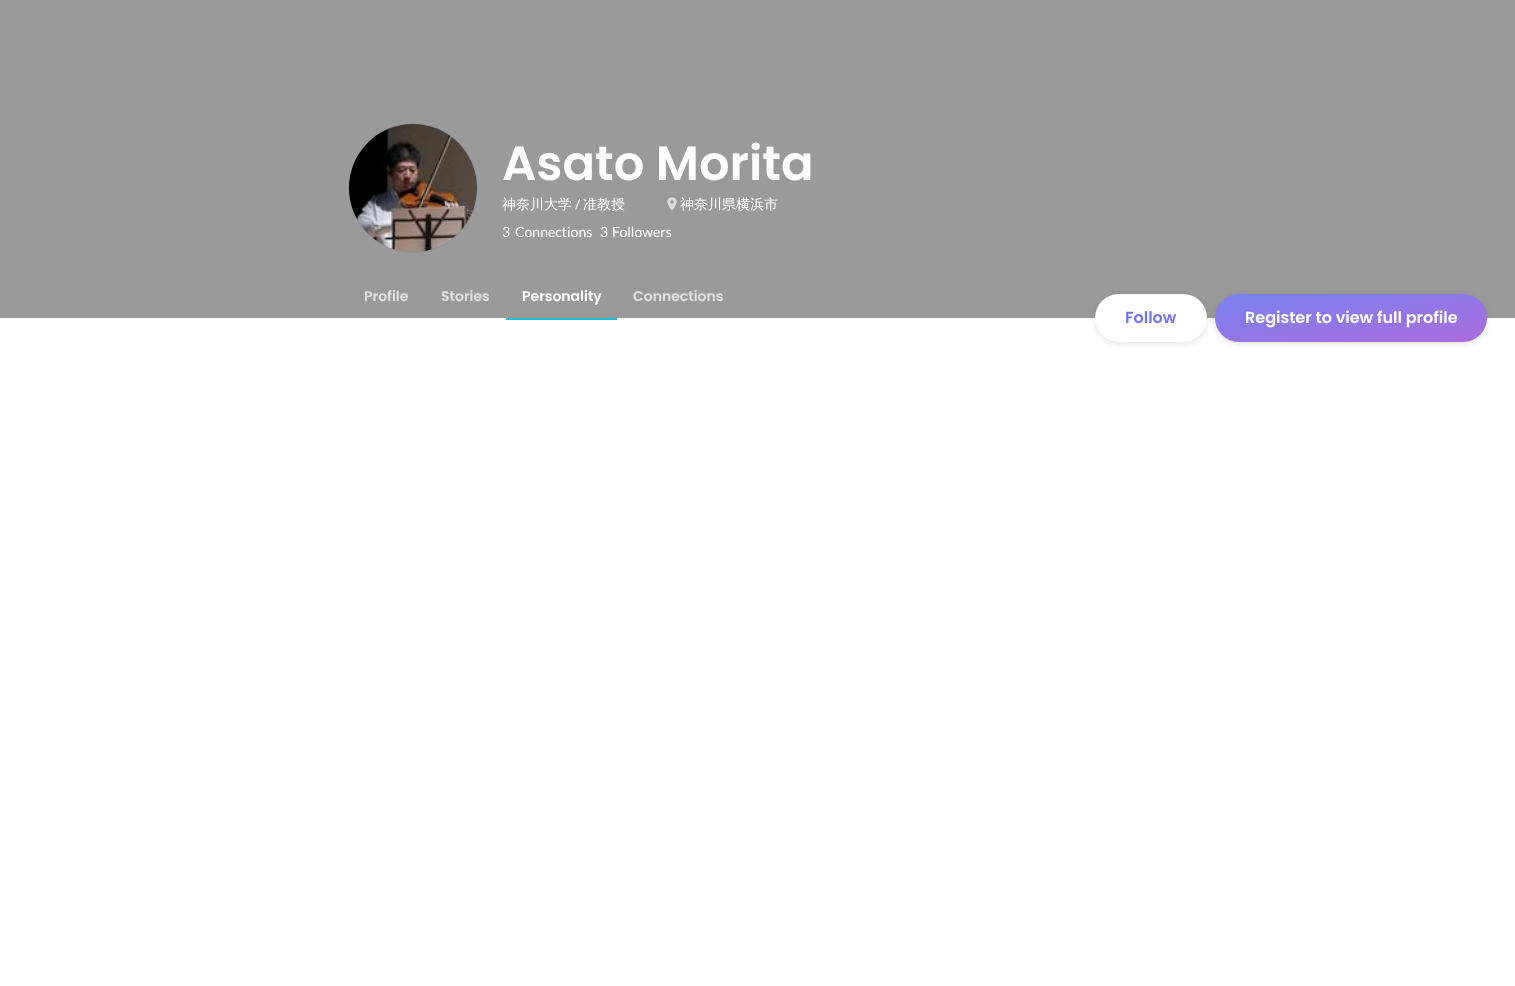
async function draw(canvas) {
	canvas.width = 1515;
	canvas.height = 986;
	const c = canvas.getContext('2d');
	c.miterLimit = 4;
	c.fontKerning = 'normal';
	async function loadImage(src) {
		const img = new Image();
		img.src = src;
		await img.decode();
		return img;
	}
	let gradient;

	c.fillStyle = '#fff';
	c.fillRect(0, 0, 1515, 986);
	c.fillStyle = '#9a9a9a';
	c.fillRect(0, 0, 1515, 318);
	c.beginPath();
	c.arc(413, 188, 64.5, 0, 2 * Math.PI);
	c.strokeStyle = '#919191';
	c.stroke();
	c.drawImage(await loadImage('img1.png'), 349, 124, 128, 128);
	c.font = '600 48px Poppins';
	c.fillStyle = '#fff';
	c.fillText('Asato Morita', 502, 180);
	c.font = '500 14px WenQuanYi Zen Hei';
	c.fillText('神奈川大学', 502, 209);
	c.font = '14px Lato';
	c.fillText('/', 575, 209);
	c.font = '500 14px WenQuanYi Zen Hei';
	c.fillText('准教授', 583, 209);
	c.drawImage(await loadImage('img2.png'), 667, 197, 10, 14);
	c.fillText('神奈川県横浜市', 680, 209);
	c.font = '14px Lato';
	for (const [text, x, y] of [
		['3', 502, 237],
		['Connections', 515, 237],
		['3', 600, 237],
		['Followers', 612, 237],
	]) {
		c.fillText(text, x, y);
	}
	c.font = '600 14px Poppins';
	c.fillStyle = '#e1e1e1';
	c.fillText('Profile', 364, 301);
	c.fillText('Stories', 441, 301);
	c.fillStyle = '#21bddb';
	c.fillRect(506, 318, 111, 2);
	c.fillStyle = '#fff';
	c.fillText('Personality', 522, 301);
	c.fillStyle = '#e1e1e1';
	c.fillText('Connections', 633, 301);
	c.fillStyle = '#0000001a';
	c.filter = 'blur(3px)';
	c.beginPath();
	c.roundRect(1095, 296, 112, 48, 24);
	c.fill();
	c.filter = 'none';
	c.fillStyle = '#fff';
	c.beginPath();
	c.roundRect(1095, 294, 112, 48, 24);
	c.fill();
	c.font = '600 16px Poppins';
	c.fillStyle = '#7372f2';
	c.fillText('Follow', 1125, 323);
	c.fillStyle = '#0000001a';
	c.filter = 'blur(3px)';
	c.beginPath();
	c.roundRect(1215, 296, 272, 48, 24);
	c.fill();
	c.filter = 'none';
	gradient = c.createLinearGradient(1343, 271, 1359, 365);
	gradient.addColorStop(0, '#7983f2');
	gradient.addColorStop(1, '#ab6bdb');
	c.fillStyle = gradient;
	c.beginPath();
	c.roundRect(1215, 294, 272, 48, 24);
	c.fill();
	c.fillStyle = '#fff';
	c.fillText('Register to view full profile', 1245, 323);
}

draw(document.querySelector('canvas'));
